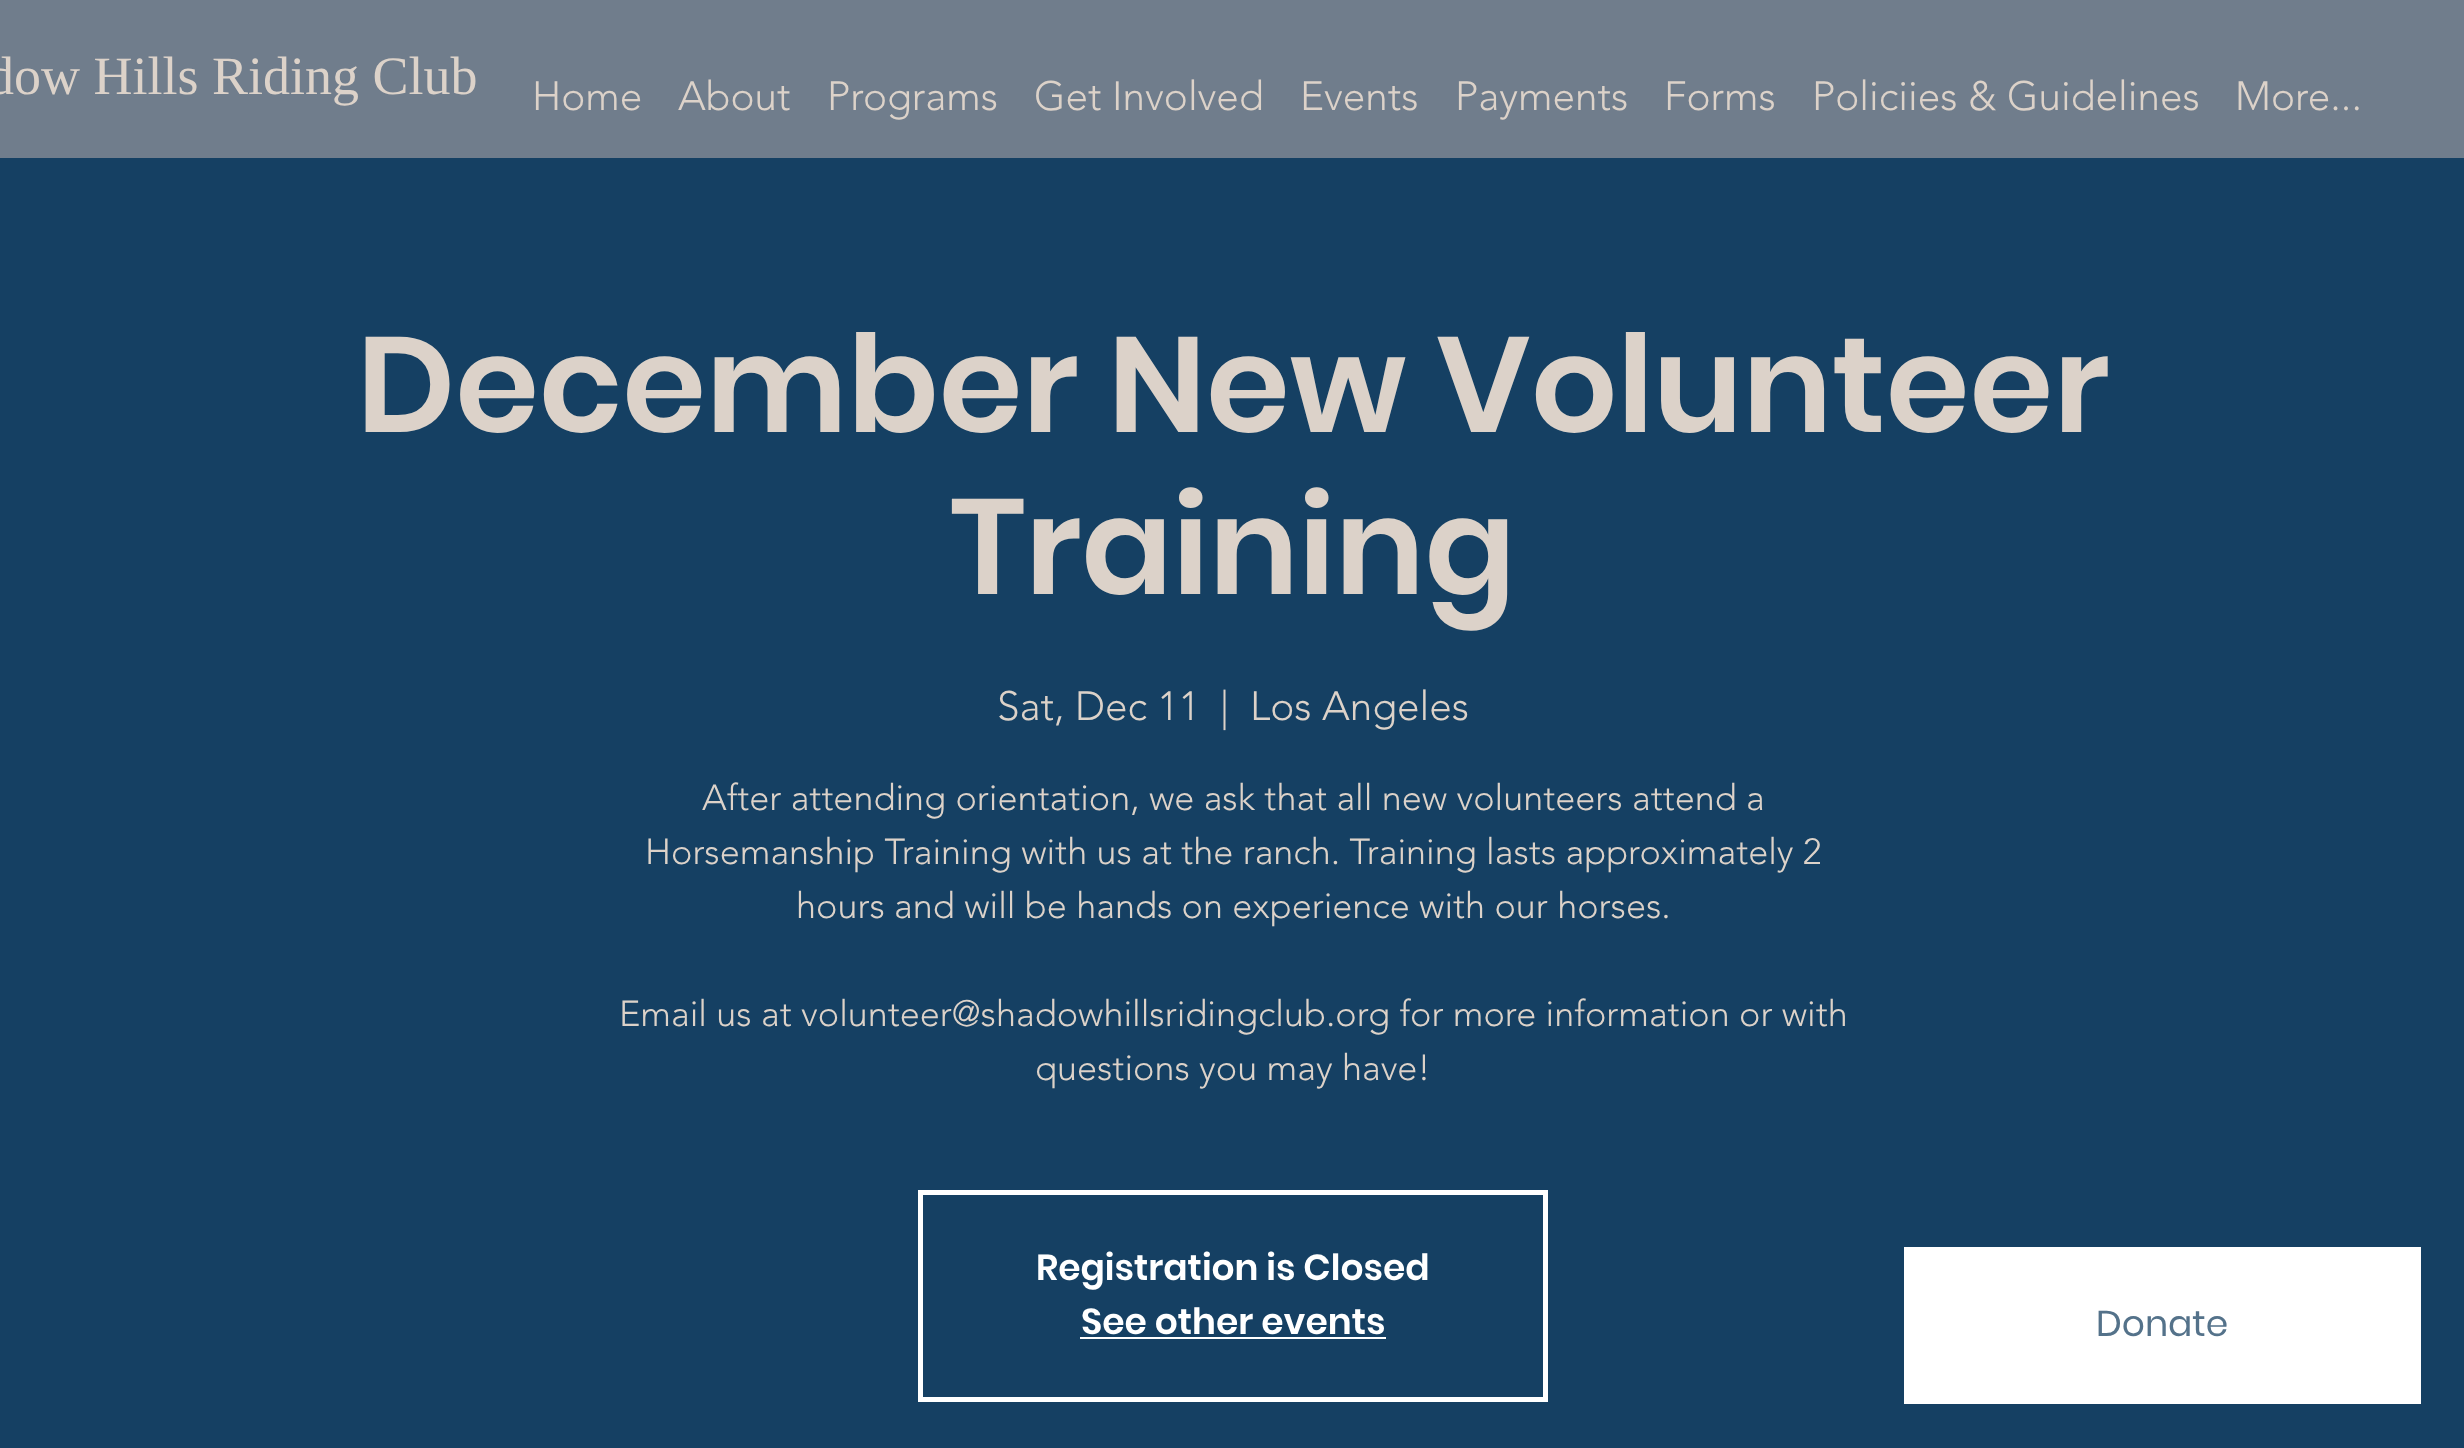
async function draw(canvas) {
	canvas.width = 2464;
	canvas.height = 1448;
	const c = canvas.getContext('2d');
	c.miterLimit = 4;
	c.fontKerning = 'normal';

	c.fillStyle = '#154063';
	c.fillRect(0, 0, 2464, 1448);
	c.fillStyle = '#707d8c';
	c.fillRect(0, 0, 2464, 158);
	c.font = '54px Liberation Serif';
	c.fillStyle = '#dcd2c9';
	c.fillText('dow Hills Riding Club', -13, 94);
	c.font = '300 40.5px "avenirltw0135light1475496"';
	for (const [text, x, y] of [
		['Home', 532, 110],
		['About', 678, 110],
		['Programs', 827, 110],
		['Get Involved', 1034, 110],
		['Events', 1300, 110],
		['Payments', 1455, 110],
		['Forms', 1664, 110],
		['Policiies & Guidelines', 1812, 110],
		['More...', 2235, 110],
	]) {
		c.fillText(text, x, y);
	}
	c.font = '600 135px Poppins';
	c.fillText('December New Volunteer', 357, 432);
	c.fillText('Training', 950, 594);
	c.font = '300 40.5px "avenirltw0135light1475496"';
	for (const [text, x, y] of [
		['Sat, Dec 11', 997, 720],
		['|', 1220, 720],
		['Los Angeles', 1250, 720],
	]) {
		c.fillText(text, x, y);
	}
	c.font = '300 36px "avenirltw0135light1475496"';
	for (const [text, x, y] of [
		['After attending orientation, we ask that all new volunteers attend a', 702, 810],
		['Horsemanship Training with us at the ranch. Training lasts approximately 2', 645, 864],
		['hours and will be hands on experience with our horses.', 796, 918],
		['Email us at volunteer@shadowhillsridingclub.org for more information or with', 619, 1026],
		['questions you may have!', 1035, 1080],
	]) {
		c.fillText(text, x, y);
	}
	c.strokeStyle = '#fff';
	c.lineWidth = 5;
	c.strokeRect(920.5, 1192.5, 625, 207);
	c.font = '600 36px Poppins';
	c.fillStyle = '#fff';
	c.fillText('Registration is Closed', 1036, 1280);
	c.fillText('See other events', 1081, 1334);
	c.fillRect(1080, 1337, 306, 2);
	c.fillRect(1904, 1247, 517, 157);
	c.font = '36px Poppins';
	c.fillStyle = '#54728a';
	c.fillText('Donate', 2096, 1336);
}

draw(document.querySelector('canvas'));
